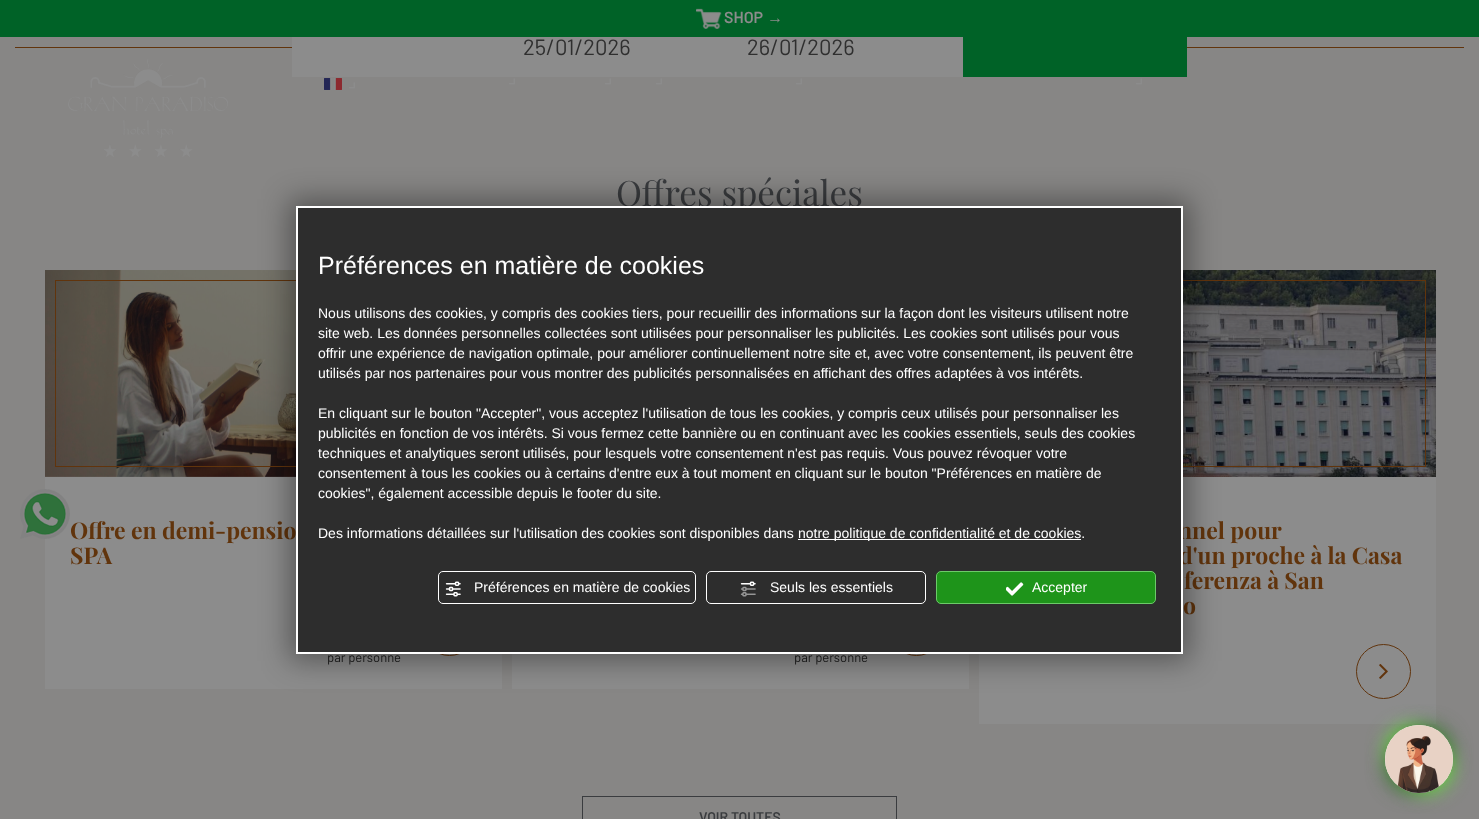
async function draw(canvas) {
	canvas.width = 1479;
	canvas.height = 819;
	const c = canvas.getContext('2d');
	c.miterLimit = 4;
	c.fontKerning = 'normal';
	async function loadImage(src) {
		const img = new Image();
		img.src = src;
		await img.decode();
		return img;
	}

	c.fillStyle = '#878685';
	c.fillRect(0, 0, 1479, 819);
	c.fillStyle = '#006227';
	c.fillRect(0, 0, 1479, 37);
	c.drawImage(await loadImage('img1.png'), 696, 8, 26, 21);
	c.font = '600 16px Barlow';
	c.fillStyle = '#8c8c8c';
	c.fillText('SHOP', 724, 23);
	c.font = 'bold 16px Liberation Serif';
	c.fillText('→', 767, 23);
	c.fillStyle = '#61340c';
	c.fillRect(15, 47, 1449, 1);
	c.fillStyle = '#8c8c8c';
	c.fillRect(292, 37, 671, 40);
	c.font = '22px Barlow';
	c.fillStyle = '#2f2f2f';
	c.fillText('25/01/2026', 523, 55);
	c.fillText('26/01/2026', 747, 55);
	c.fillStyle = '#006227';
	c.fillRect(963, 37, 224, 40);
	c.drawImage(await loadImage('img2.png'), 68, 59, 160, 98);
	c.drawImage(await loadImage('img3.png'), 324, 78, 18, 12);
	c.drawImage(await loadImage('img4.png'), 349, 82, 6, 7);
	c.drawImage(await loadImage('img4.png'), 509, 78, 6, 7);
	c.drawImage(await loadImage('img4.png'), 605, 78, 6, 7);
	c.drawImage(await loadImage('img4.png'), 656, 78, 6, 7);
	c.drawImage(await loadImage('img4.png'), 796, 78, 6, 7);
	c.drawImage(await loadImage('img4.png'), 1136, 78, 6, 7);
	c.fillStyle = '#8c8c8c';
	c.fillRect(45, 477, 457, 212);
	c.drawImage(await loadImage('img5.png'), 20, 489, 50, 50);
	c.font = '35px Playfair Display';
	c.fillStyle = '#3a3c3f';
	c.fillText('Offres spéciales', 616, 206);
	c.drawImage(await loadImage('img6.png'), 45, 270, 251, 207);
	c.strokeStyle = '#61340c';
	c.strokeRect(55.5, 280.5, 436, 186);
	c.font = 'bold 23px Playfair Display';
	c.fillStyle = '#61340c';
	c.fillText('Offre en demi-pensio', 70, 539);
	c.fillText('SPA', 70, 564);
	c.beginPath();
	c.arc(449.5, 628.5, 27, 0, 2 * Math.PI);
	c.stroke();
	c.font = '13px Barlow';
	c.fillStyle = '#1c1c1c';
	c.fillText('par personne', 327, 662);
	c.drawImage(await loadImage('img7.png'), 1183, 270, 253, 207);
	c.strokeRect(989.5, 280.5, 436, 186);
	c.fillStyle = '#8c8c8c';
	c.fillRect(979, 477, 457, 247);
	c.font = 'bold 23px Playfair Display';
	c.fillStyle = '#61340c';
	for (const [text, x, y] of [
		['nnel pour', 1178, 539],
		['d\'un proche à la Casa', 1179, 564],
		['ferenza à San', 1184, 589],
		['o', 1183, 614],
	]) {
		c.fillText(text, x, y);
	}
	c.beginPath();
	c.arc(1383.5, 671.5, 27, 0, 2 * Math.PI);
	c.stroke();
	c.drawImage(await loadImage('img8.png'), 1379, 664, 9, 15);
	c.fillStyle = '#8c8c8c';
	c.fillRect(512, 654, 457, 35);
	c.beginPath();
	c.arc(916.5, 628.5, 27, 0, 2 * Math.PI);
	c.stroke();
	c.font = '13px Barlow';
	c.fillStyle = '#1c1c1c';
	c.fillText('par personne', 794, 662);
	c.strokeStyle = '#3a3c3f';
	c.strokeRect(582.5, 796.5, 314, 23);
	c.font = '600 14px Barlow';
	c.fillStyle = '#3a3c3f';
	c.fillText('VOIR TOUTES', 699, 822);
	c.fillStyle = '#00000061';
	c.filter = 'blur(14.5px)';
	c.beginPath();
	c.rect(289, 199, 901, 462);
	c.fill();
	c.filter = 'none';
	c.fillStyle = '#2d2d2d';
	c.beginPath();
	c.rect(297, 207, 885, 446);
	c.fill();
	c.strokeStyle = '#fff';
	c.lineWidth = 2;
	c.stroke();
	c.font = '25px Liberation Sans';
	c.fillStyle = '#fff';
	c.fillText('Préférences en matière de cookies', 318, 274);
	c.font = '14px Liberation Sans';
	for (const [text, x, y] of [
		['Nous utilisons des cookies, y compris des cookies tiers, pour recueillir des informations sur la façon dont les visiteurs utilisent notre', 318, 318],
		['site web. Les données personnelles collectées sont utilisées pour personnaliser les publicités. Les cookies sont utilisés pour vous', 318, 338],
		['offrir une expérience de navigation optimale, pour améliorer continuellement notre site et, avec votre consentement, ils peuvent être', 318, 358],
		['utilisés par nos partenaires pour vous montrer des publicités personnalisées en affichant des offres adaptées à vos intérêts.', 318, 378],
		['En cliquant sur le bouton "Accepter", vous acceptez l\'utilisation de tous les cookies, y compris ceux utilisés pour personnaliser les', 318, 418],
		['publicités en fonction de vos intérêts. Si vous fermez cette bannière ou en continuant avec les cookies essentiels, seuls des cookies', 318, 438],
		['techniques et analytiques seront utilisés, pour lesquels votre consentement n\'est pas requis. Vous pouvez révoquer votre', 318, 458],
		['consentement à tous les cookies ou à certains d\'entre eux à tout moment en cliquant sur le bouton "Préférences en matière de', 318, 478],
		['cookies", également accessible depuis le footer du site.', 318, 498],
		['Des informations détaillées sur l\'utilisation des cookies sont disponibles dans', 318, 538],
	]) {
		c.fillText(text, x, y);
	}
	c.fillRect(798, 539, 283, 1);
	c.fillText('notre politique de confidentialité et de cookies.', 798, 538);
	c.beginPath();
	c.roundRect(438.5, 571.5, 257, 32, 4.5);
	c.lineWidth = 1;
	c.stroke();
	c.drawImage(await loadImage('img9.png'), 445, 581, 16, 16);
	c.fillText('Préférences en matière de cookies', 474, 592);
	c.beginPath();
	c.roundRect(706.5, 571.5, 219, 32, 4.5);
	c.stroke();
	c.drawImage(await loadImage('img10.png'), 740, 581, 16, 16);
	c.fillText('Seuls les essentiels', 770, 592);
	c.fillStyle = '#1e941a';
	c.beginPath();
	c.roundRect(936.5, 571.5, 219, 32, 4.5);
	c.fill();
	c.strokeStyle = '#6cca69';
	c.stroke();
	c.drawImage(await loadImage('img11.png'), 1006, 582, 18, 14);
	c.fillStyle = '#fff';
	c.fillText('Accepter', 1032, 592);
	c.fillStyle = '#6ae93e';
	c.filter = 'blur(10px)';
	c.beginPath();
	c.roundRect(1387, 727, 48, 48, 24);
	c.fill();
	c.filter = 'none';
	c.fillStyle = '#31672b';
	c.filter = 'blur(10px)';
	c.beginPath();
	c.roundRect(1403, 727, 48, 48, 24);
	c.fill();
	c.filter = 'none';
	c.filter = 'blur(10px)';
	c.beginPath();
	c.roundRect(1387, 743, 48, 48, 24);
	c.fill();
	c.filter = 'none';
	c.fillStyle = '#6ae93e';
	c.filter = 'blur(10px)';
	c.beginPath();
	c.roundRect(1403, 743, 48, 48, 24);
	c.fill();
	c.filter = 'none';
	c.fillStyle = '#fff';
	c.beginPath();
	c.arc(1419, 759, 34, 0, 2 * Math.PI);
	c.fill();
	c.drawImage(await loadImage('img12.png'), 1385, 725, 68, 68);
}

draw(document.querySelector('canvas'));
